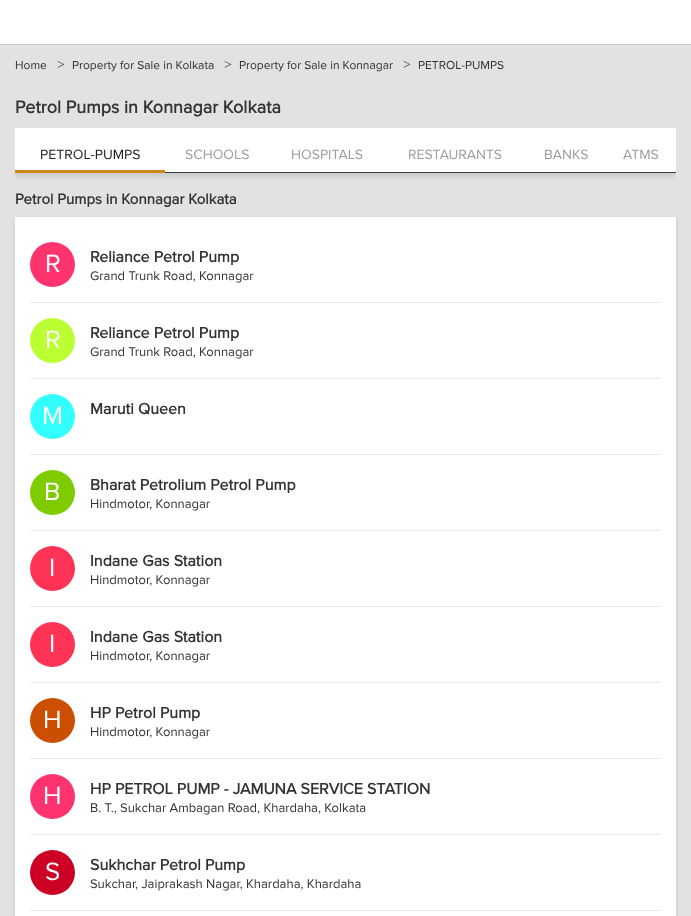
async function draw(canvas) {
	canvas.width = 691;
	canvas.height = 916;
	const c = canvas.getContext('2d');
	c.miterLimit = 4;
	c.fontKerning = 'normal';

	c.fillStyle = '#e2e2e2';
	c.fillRect(0, 0, 691, 916);
	c.fillStyle = '#fff';
	c.fillRect(0, 0, 691, 44);
	c.fillStyle = '#c6c6c6';
	c.fillRect(0, 44, 691, 1);
	c.font = '12px Proxima Nova';
	c.fillStyle = '#333';
	c.fillText('Home', 15, 69);
	c.font = '14px Liberation Serif';
	c.fillText('>', 57, 69);
	c.font = '12px Proxima Nova';
	c.fillText('Property for Sale in Kolkata', 72, 69);
	c.font = '14px Liberation Serif';
	c.fillText('>', 224, 69);
	c.font = '12px Proxima Nova';
	c.fillText('Property for Sale in Konnagar', 239, 69);
	c.font = '14px Liberation Serif';
	c.fillText('>', 403, 69);
	c.font = '12px Proxima Nova';
	c.fillText('PETROL-PUMPS', 418, 69);
	c.font = 'bold 18px Proxima Nova';
	c.fillText('Petrol Pumps in Konnagar Kolkata', 15, 113);
	c.save();
	c.beginPath();
	c.rect(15, 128, 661, 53);
	c.clip();
	c.fillStyle = '#0000001f';
	c.filter = 'blur(2.5px)';
	c.beginPath();
	c.rect(15, 131, 661, 45);
	c.fill();
	c.filter = 'none';
	c.restore();
	c.fillStyle = '#fff';
	c.fillRect(15, 128, 661, 44);
	c.fillStyle = '#d58512';
	c.fillRect(15, 170, 150, 3);
	c.font = '14px Proxima Nova';
	c.fillStyle = '#1c1c1c';
	c.fillText('PETROL-PUMPS', 40, 159);
	c.fillStyle = '#3c3c3c';
	c.fillRect(165, 172, 511, 1);
	c.fillStyle = '#9c9c9c';
	for (const [text, x, y] of [
		['SCHOOLS', 185, 159],
		['HOSPITALS', 291, 159],
		['RESTAURANTS', 408, 159],
		['BANKS', 544, 159],
		['ATMS', 623, 159],
	]) {
		c.fillText(text, x, y);
	}
	c.font = 'bold 15px Proxima Nova';
	c.fillStyle = '#333';
	c.fillText('Petrol Pumps in Konnagar Kolkata', 15, 204);
	c.fillStyle = '#0000001f';
	c.filter = 'blur(2.5px)';
	c.beginPath();
	c.rect(15, 220, 661, 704);
	c.fill();
	c.filter = 'none';
	c.fillStyle = '#fff';
	c.fillRect(15, 217, 661, 699);
	c.fillStyle = '#ebebeb';
	c.fillRect(30, 302, 631, 1);
	c.fillStyle = '#ff336d';
	c.beginPath();
	c.arc(52.5, 264.5, 22.5, 0, 2 * Math.PI);
	c.fill();
	c.font = '26px Proxima Nova';
	c.fillStyle = '#fff';
	c.fillText('R', 45, 272);
	c.font = 'bold 16px Proxima Nova';
	c.fillStyle = '#333';
	c.fillText('Reliance Petrol Pump', 90, 262);
	c.font = '13px Proxima Nova';
	c.fillText('Grand Trunk Road, Konnagar', 90, 280);
	c.fillStyle = '#ebebeb';
	c.fillRect(30, 378, 631, 1);
	c.fillStyle = '#bf3';
	c.beginPath();
	c.arc(52.5, 340.5, 22.5, 0, 2 * Math.PI);
	c.fill();
	c.font = '26px Proxima Nova';
	c.fillStyle = '#fff';
	c.fillText('R', 45, 348);
	c.font = 'bold 16px Proxima Nova';
	c.fillStyle = '#333';
	c.fillText('Reliance Petrol Pump', 90, 338);
	c.font = '13px Proxima Nova';
	c.fillText('Grand Trunk Road, Konnagar', 90, 356);
	c.fillStyle = '#ebebeb';
	c.fillRect(30, 454, 631, 1);
	c.fillStyle = '#3ff';
	c.beginPath();
	c.arc(52.5, 416.5, 22.5, 0, 2 * Math.PI);
	c.fill();
	c.font = '26px Proxima Nova';
	c.fillStyle = '#fff';
	c.fillText('M', 42, 424);
	c.font = 'bold 16px Proxima Nova';
	c.fillStyle = '#333';
	c.fillText('Maruti Queen', 90, 414);
	c.fillStyle = '#ebebeb';
	c.fillRect(30, 530, 631, 1);
	c.fillStyle = '#7ecc00';
	c.beginPath();
	c.arc(52.5, 492.5, 22.5, 0, 2 * Math.PI);
	c.fill();
	c.font = '26px Proxima Nova';
	c.fillStyle = '#fff';
	c.fillText('B', 44, 500);
	c.font = 'bold 16px Proxima Nova';
	c.fillStyle = '#333';
	c.fillText('Bharat Petrolium Petrol Pump', 90, 490);
	c.font = '13px Proxima Nova';
	c.fillText('Hindmotor, Konnagar', 90, 508);
	c.fillStyle = '#ebebeb';
	c.fillRect(30, 606, 631, 1);
	c.fillStyle = '#f35';
	c.beginPath();
	c.arc(52.5, 568.5, 22.5, 0, 2 * Math.PI);
	c.fill();
	c.font = '26px Proxima Nova';
	c.fillStyle = '#fff';
	c.fillText('I', 49, 576);
	c.font = 'bold 16px Proxima Nova';
	c.fillStyle = '#333';
	c.fillText('Indane Gas Station', 90, 566);
	c.font = '13px Proxima Nova';
	c.fillText('Hindmotor, Konnagar', 90, 584);
	c.fillStyle = '#ebebeb';
	c.fillRect(30, 682, 631, 1);
	c.fillStyle = '#f35';
	c.beginPath();
	c.arc(52.5, 644.5, 22.5, 0, 2 * Math.PI);
	c.fill();
	c.font = '26px Proxima Nova';
	c.fillStyle = '#fff';
	c.fillText('I', 49, 652);
	c.font = 'bold 16px Proxima Nova';
	c.fillStyle = '#333';
	c.fillText('Indane Gas Station', 90, 642);
	c.font = '13px Proxima Nova';
	c.fillText('Hindmotor, Konnagar', 90, 660);
	c.fillStyle = '#ebebeb';
	c.fillRect(30, 758, 631, 1);
	c.fillStyle = '#cc4e00';
	c.beginPath();
	c.arc(52.5, 720.5, 22.5, 0, 2 * Math.PI);
	c.fill();
	c.font = '26px Proxima Nova';
	c.fillStyle = '#fff';
	c.fillText('H', 43, 728);
	c.font = 'bold 16px Proxima Nova';
	c.fillStyle = '#333';
	c.fillText('HP Petrol Pump', 90, 718);
	c.font = '13px Proxima Nova';
	c.fillText('Hindmotor, Konnagar', 90, 736);
	c.fillStyle = '#ebebeb';
	c.fillRect(30, 834, 631, 1);
	c.fillStyle = '#ff336d';
	c.beginPath();
	c.arc(52.5, 796.5, 22.5, 0, 2 * Math.PI);
	c.fill();
	c.font = '26px Proxima Nova';
	c.fillStyle = '#fff';
	c.fillText('H', 43, 804);
	c.font = 'bold 16px Proxima Nova';
	c.fillStyle = '#333';
	c.fillText('HP PETROL PUMP - JAMUNA SERVICE STATION', 90, 794);
	c.font = '13px Proxima Nova';
	c.fillText('B. T., Sukchar Ambagan Road, Khardaha, Kolkata', 90, 812);
	c.fillStyle = '#ebebeb';
	c.fillRect(30, 910, 631, 1);
	c.fillStyle = '#cc0025';
	c.beginPath();
	c.arc(52.5, 872.5, 22.5, 0, 2 * Math.PI);
	c.fill();
	c.font = '26px Proxima Nova';
	c.fillStyle = '#fff';
	c.fillText('S', 45, 880);
	c.font = 'bold 16px Proxima Nova';
	c.fillStyle = '#333';
	c.fillText('Sukhchar Petrol Pump', 90, 870);
	c.font = '13px Proxima Nova';
	c.fillText('Sukchar, Jaiprakash Nagar, Khardaha, Khardaha', 90, 888);
}

draw(document.querySelector('canvas'));
